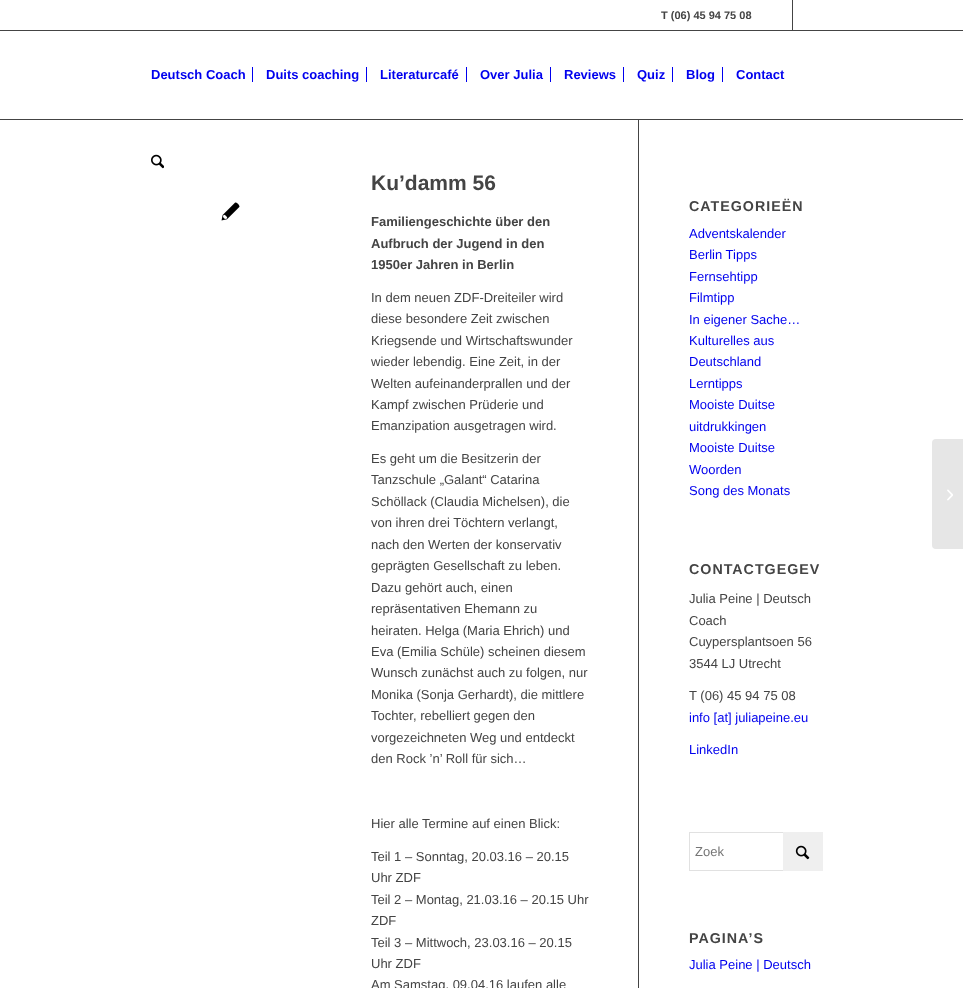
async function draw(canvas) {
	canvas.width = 963;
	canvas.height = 988;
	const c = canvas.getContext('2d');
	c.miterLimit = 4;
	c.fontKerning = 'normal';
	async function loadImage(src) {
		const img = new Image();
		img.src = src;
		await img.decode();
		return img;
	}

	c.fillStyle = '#fff';
	c.fillRect(0, 0, 963, 988);
	c.font = 'bold 11px Liberation Sans';
	c.fillStyle = '#444';
	c.fillText('T (06) 45 94 75 08', 661, 19);
	for (const [x, y, w, h, color] of [
		[792, 0, 1, 30, '#444'],
		[0, 30, 963, 1, '#444'],
		[638, 119, 1, 869, '#444'],
		[0, 119, 963, 1, '#444'],
	]) {
		c.fillStyle = color;
		c.fillRect(x, y, w, h);
	}
	c.font = 'bold 13px Liberation Sans';
	c.fillStyle = '#00e';
	c.fillText('Deutsch Coach', 151, 79);
	c.fillText('Duits coaching', 266, 79);
	c.fillRect(252, 67, 1, 15);
	c.fillText('Literaturcafé', 380, 79);
	c.fillRect(366, 67, 1, 15);
	c.fillText('Over Julia', 480, 79);
	c.fillRect(466, 67, 1, 15);
	c.fillText('Reviews', 564, 79);
	c.fillRect(550, 67, 1, 15);
	c.fillText('Quiz', 637, 79);
	c.fillRect(623, 67, 1, 15);
	c.fillText('Blog', 686, 79);
	c.fillRect(672, 67, 1, 15);
	c.fillText('Contact', 736, 79);
	c.fillRect(722, 67, 1, 15);
	c.drawImage(await loadImage('img1.png'), 151, 154, 13, 15);
	c.drawImage(await loadImage('img2.png'), 221, 202, 19, 19);
	c.font = 'bold 21px Liberation Sans';
	c.fillStyle = '#444';
	c.fillText('Ku’damm 56', 371, 190);
	c.font = 'bold 13px Liberation Sans';
	for (const [text, x, y] of [
		['Familiengeschichte über den', 371, 226],
		['Aufbruch der Jugend in den', 371, 248],
		['1950er Jahren in Berlin', 371, 269],
	]) {
		c.fillText(text, x, y);
	}
	c.font = '13px Liberation Sans';
	for (const [text, x, y] of [
		['In dem neuen ZDF-Dreiteiler wird', 371, 302],
		['diese besondere Zeit zwischen', 371, 323],
		['Kriegsende und Wirtschaftswunder', 371, 345],
		['wieder lebendig. Eine Zeit, in der', 371, 366],
		['Welten aufeinanderprallen und der', 371, 388],
		['Kampf zwischen Prüderie und', 371, 409],
		['Emanzipation ausgetragen wird.', 371, 430],
		['Es geht um die Besitzerin der', 371, 463],
		['Tanzschule „Galant“ Catarina', 371, 484],
		['Schöllack (Claudia Michelsen), die', 371, 506],
		['von ihren drei Töchtern verlangt,', 371, 527],
		['nach den Werten der konservativ', 371, 549],
		['geprägten Gesellschaft zu leben.', 371, 570],
		['Dazu gehört auch, einen', 371, 592],
		['repräsentativen Ehemann zu', 371, 613],
		['heiraten. Helga (Maria Ehrich) und', 371, 635],
		['Eva (Emilia Schüle) scheinen diesem', 371, 656],
		['Wunsch zunächst auch zu folgen, nur', 371, 677],
		['Monika (Sonja Gerhardt), die mittlere', 371, 699],
		['Tochter, rebelliert gegen den', 371, 720],
		['vorgezeichneten Weg und entdeckt', 371, 742],
		['den Rock ’n’ Roll für sich…', 371, 763],
		['Hier alle Termine auf einen Blick:', 371, 828],
		['Teil 1 – Sonntag, 20.03.16 – 20.15', 371, 861],
		['Uhr ZDF', 371, 882],
		['Teil 2 – Montag, 21.03.16 – 20.15 Uhr', 371, 904],
		['ZDF', 371, 925],
		['Teil 3 – Mittwoch, 23.03.16 – 20.15', 371, 947],
		['Uhr ZDF', 371, 968],
		['Am Samstag, 09.04.16 laufen alle', 371, 989],
	]) {
		c.fillText(text, x, y);
	}
	c.letterSpacing = '1px';
	c.font = 'bold 14.25px Liberation Sans';
	c.fillText('CATEGORIEËN', 689, 211);
	c.letterSpacing = '0px';
	c.font = '13px Liberation Sans';
	c.fillStyle = '#00e';
	for (const [text, x, y] of [
		['Adventskalender', 689, 238],
		['Berlin Tipps', 689, 259],
		['Fernsehtipp', 689, 281],
		['Filmtipp', 689, 302],
		['In eigener Sache…', 689, 324],
		['Kulturelles aus', 689, 345],
		['Deutschland', 689, 366],
		['Lerntipps', 689, 388],
		['Mooiste Duitse', 689, 409],
		['uitdrukkingen', 689, 431],
		['Mooiste Duitse', 689, 452],
		['Woorden', 689, 474],
		['Song des Monats', 689, 495],
	]) {
		c.fillText(text, x, y);
	}
	c.letterSpacing = '1px';
	c.font = 'bold 14.25px Liberation Sans';
	c.fillStyle = '#444';
	c.fillText('CONTACTGEGEV', 689, 574);
	c.letterSpacing = '0px';
	c.font = '13px Liberation Sans';
	for (const [text, x, y] of [
		['Julia Peine | Deutsch', 689, 603],
		['Coach', 689, 625],
		['Cuypersplantsoen 56', 689, 646],
		['3544 LJ Utrecht', 689, 668],
		['T (06) 45 94 75 08', 689, 700],
	]) {
		c.fillText(text, x, y);
	}
	c.fillStyle = '#00e';
	c.fillText('info [at] juliapeine.eu', 689, 722);
	c.fillText('LinkedIn', 689, 754);
	c.strokeStyle = '#e1e1e1';
	c.strokeRect(689.5, 832.5, 133, 38);
	c.fillStyle = '#efefef';
	c.fillRect(783, 832, 40, 39);
	c.fillStyle = '#757575';
	c.fillText('Zoek', 695, 856);
	c.drawImage(await loadImage('img3.png'), 795, 845, 15, 15);
	c.letterSpacing = '1px';
	c.font = 'bold 14.25px Liberation Sans';
	c.fillStyle = '#444';
	c.fillText('PAGINA’S', 689, 943);
	c.letterSpacing = '0px';
	c.font = '13px Liberation Sans';
	c.fillStyle = '#00e';
	c.fillText('Julia Peine | Deutsch', 689, 969);
	c.fillStyle = '#e6e6e6';
	c.beginPath();
	c.roundRect(932, 439, 31, 110, [4, 0, 0, 4]);
	c.fill();
	c.drawImage(await loadImage('img4.png'), 947, 489, 6, 12);
}

draw(document.querySelector('canvas'));
